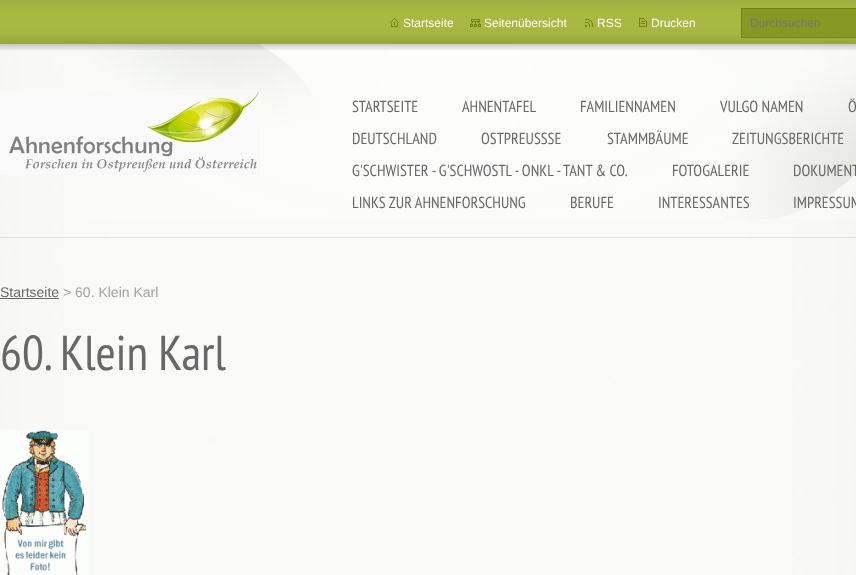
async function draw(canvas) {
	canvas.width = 856;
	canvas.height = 575;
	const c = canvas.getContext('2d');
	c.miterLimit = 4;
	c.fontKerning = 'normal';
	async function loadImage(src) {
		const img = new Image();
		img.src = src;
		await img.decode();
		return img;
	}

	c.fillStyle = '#fff';
	c.fillRect(0, 0, 856, 575);
	c.drawImage(await loadImage('img1.png'), 0, 44, 856, 531);
	c.drawImage(await loadImage('img2.png'), 89, 44, 767, 175);
	c.fillStyle = '#9e9e9e42';
	c.fillRect(0, 237, 856, 1);
	c.drawImage(await loadImage('img3.png'), 0, 0, 856, 50);
	c.drawImage(await loadImage('img4.png'), 390, 18, 9, 9);
	c.font = '12px Liberation Sans';
	c.fillStyle = '#fff';
	c.fillText('Startseite', 403, 27);
	c.drawImage(await loadImage('img5.png'), 470, 19, 11, 8);
	c.fillText('Seitenübersicht', 484, 27);
	c.drawImage(await loadImage('img6.png'), 585, 19, 8, 8);
	c.fillText('RSS', 597, 27);
	c.drawImage(await loadImage('img7.png'), 639, 18, 8, 9);
	c.fillText('Drucken', 651, 27);
	c.drawImage(await loadImage('img8.png'), 741, 8, 115, 30);
	c.fillStyle = '#757575';
	c.fillText('Durchsuchen', 750, 27);
	c.drawImage(await loadImage('img9.png'), 0, 90, 260, 85);
	c.font = '16px PT Sans Narrow';
	c.fillStyle = '#686868';
	for (const [text, x, y] of [
		['STARTSEITE', 352, 112],
		['AHNENTAFEL', 462, 112],
		['FAMILIENNAMEN', 580, 112],
		['VULGO NAMEN', 720, 112],
		['Ö', 848, 112],
		['DEUTSCHLAND', 352, 144],
		['OSTPREUSSSE', 481, 144],
		['STAMMBÄUME', 607, 144],
		['ZEITUNGSBERICHTE', 732, 144],
		['G\'SCHWISTER - G\'SCHWOSTL - ONKL - TANT & CO.', 352, 176],
		['FOTOGALERIE', 672, 176],
		['DOKUMENT', 793, 176],
		['LINKS ZUR AHNENFORSCHUNG', 352, 208],
		['BERUFE', 570, 208],
		['INTERESSANTES', 658, 208],
		['IMPRESSUM', 793, 208],
	]) {
		c.fillText(text, x, y);
	}
	c.font = '14px Liberation Sans';
	c.fillText('Startseite', 0, 297);
	c.fillRect(0, 298, 59, 1);
	c.fillStyle = '#a3a1a1';
	c.fillText('> 60. Klein Karl', 63, 297);
	c.font = '49px PT Sans Narrow';
	c.fillStyle = '#686868';
	c.fillText('60. Klein Karl', 0, 370);
	c.drawImage(await loadImage('img10.png'), 0, 430, 89, 145);
}

draw(document.querySelector('canvas'));
